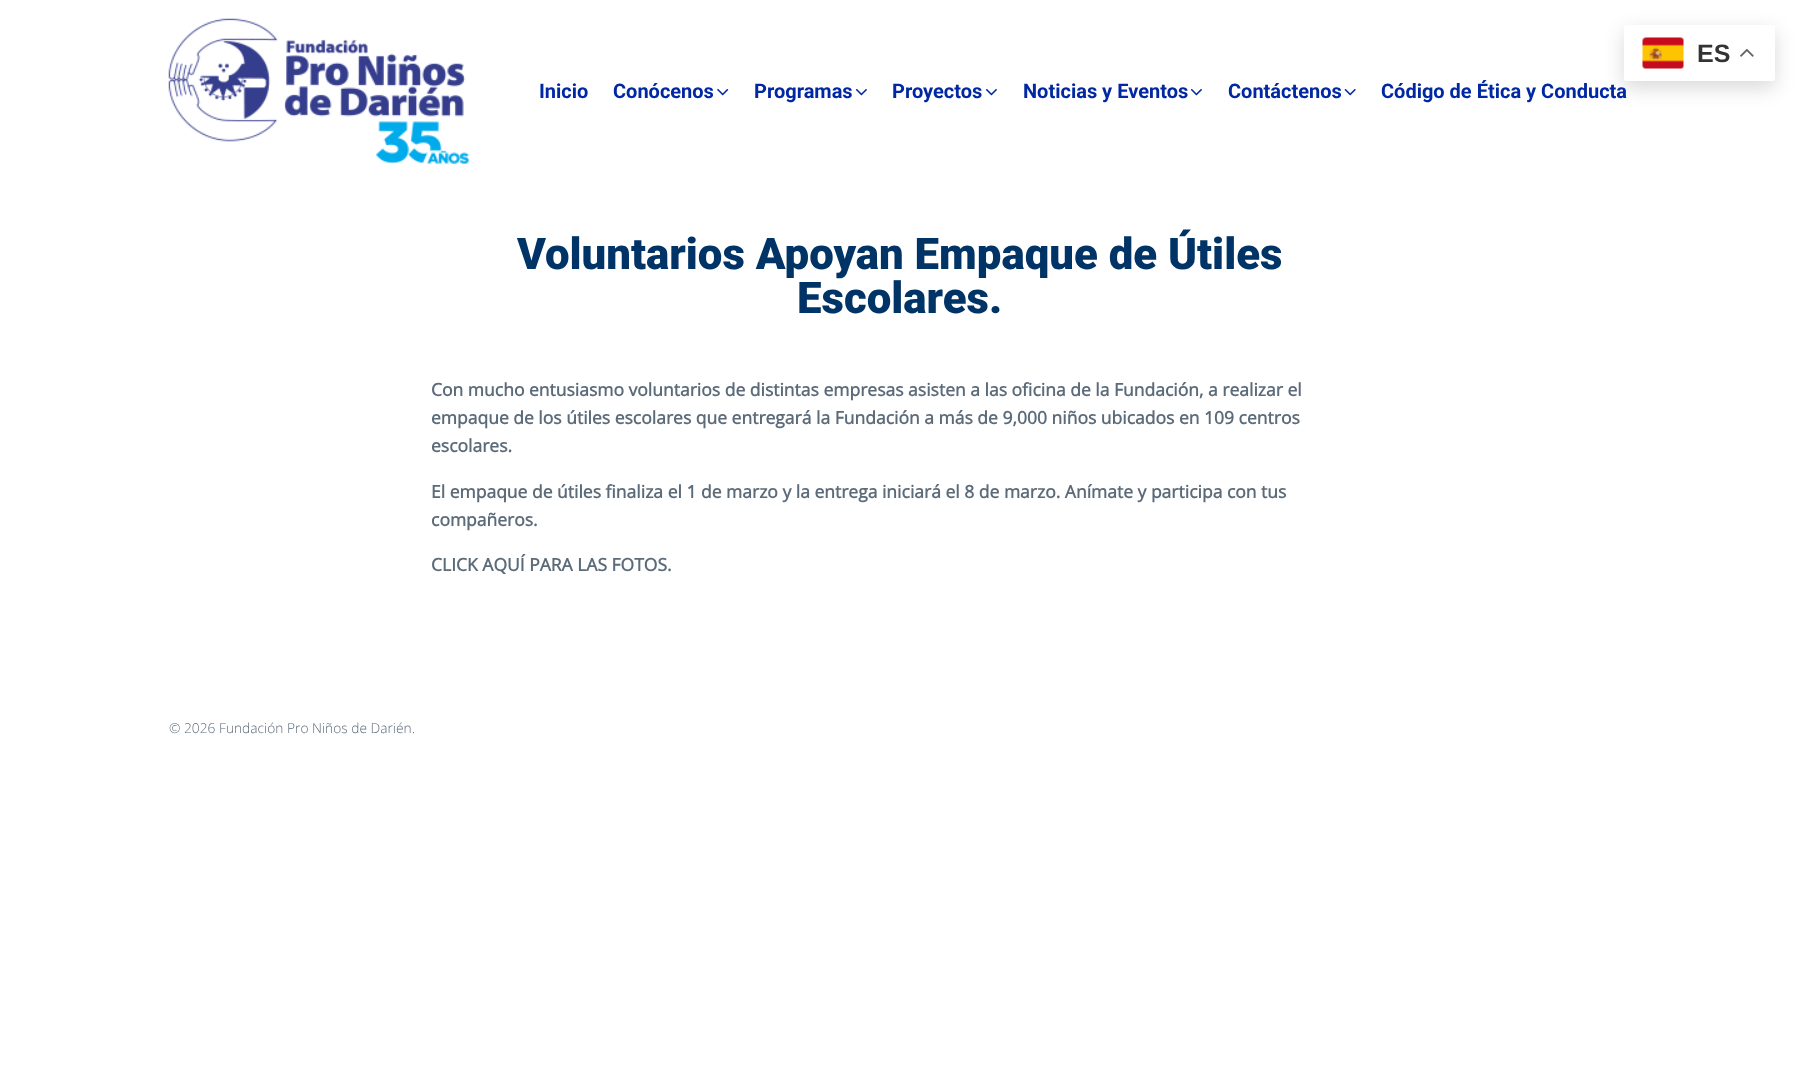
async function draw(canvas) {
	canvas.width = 1799;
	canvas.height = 1088;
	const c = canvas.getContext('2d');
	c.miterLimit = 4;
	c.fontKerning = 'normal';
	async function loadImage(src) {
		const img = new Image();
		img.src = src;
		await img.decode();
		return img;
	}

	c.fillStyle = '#fff';
	c.fillRect(0, 0, 1799, 1088);
	c.fillStyle = '#00000026';
	c.filter = 'blur(9.5px)';
	c.beginPath();
	c.roundRect(1624, 31, 151, 57, 2.5);
	c.fill();
	c.filter = 'none';
	c.font = 'bold 20px Roboto';
	c.fillStyle = '#0028a3';
	c.fillText('Código de Ética y Conducta', 1381, 98);
	c.fillStyle = '#fff';
	c.beginPath();
	c.roundRect(1624, 25, 151, 56, 2.5);
	c.fill();
	c.drawImage(await loadImage('img1.png'), 1642, 37, 42, 32);
	c.font = 'bold 25px Liberation Sans';
	c.fillStyle = '#333';
	c.fillText('ES', 1697, 62);
	c.drawImage(await loadImage('img2.png'), 1740, 48, 14, 9);
	c.drawImage(await loadImage('img3.png'), 168, 18, 301, 146);
	c.font = 'bold 20px Roboto';
	c.fillStyle = '#0028a3';
	c.fillText('Inicio', 539, 98);
	c.fillText('Conócenos', 613, 98);
	c.drawImage(await loadImage('img4.png'), 717, 88, 12, 8);
	c.fillText('Programas', 754, 98);
	c.drawImage(await loadImage('img5.png'), 855, 88, 12, 8);
	c.fillText('Proyectos', 892, 98);
	c.drawImage(await loadImage('img5.png'), 985, 88, 12, 8);
	c.fillText('Noticias y Eventos', 1023, 98);
	c.drawImage(await loadImage('img5.png'), 1190, 88, 12, 8);
	c.fillText('Contáctenos', 1228, 98);
	c.drawImage(await loadImage('img6.png'), 1344, 88, 12, 8);
	c.font = '900 43.75px Roboto';
	c.fillStyle = '#036';
	c.fillText('Voluntarios Apoyan Empaque de Útiles', 517, 269);
	c.fillText('Escolares.', 797, 313);
	c.font = 'bold 17.5px Open Sans';
	c.fillStyle = '#5c6b79';
	for (const [text, x, y] of [
		['Con mucho entusiasmo voluntarios de distintas empresas asisten a las oficina de la Fundación, a realizar el', 431, 396],
		['empaque de los útiles escolares que entregará la Fundación a más de 9,000 niños ubicados en 109 centros', 431, 424],
		['escolares.', 431, 452],
		['El empaque de útiles finaliza el 1 de marzo y la entrega iniciará el 8 de marzo. Anímate y participa con tus', 431, 498],
		['compañeros.', 431, 526],
		['CLICK AQUÍ PARA LAS FOTOS.', 431, 571],
	]) {
		c.fillText(text, x, y);
	}
	c.font = '300 13.75px Open Sans';
	c.fillText('© 2026 Fundación Pro Niños de Darién.', 169, 733);
}

draw(document.querySelector('canvas'));
